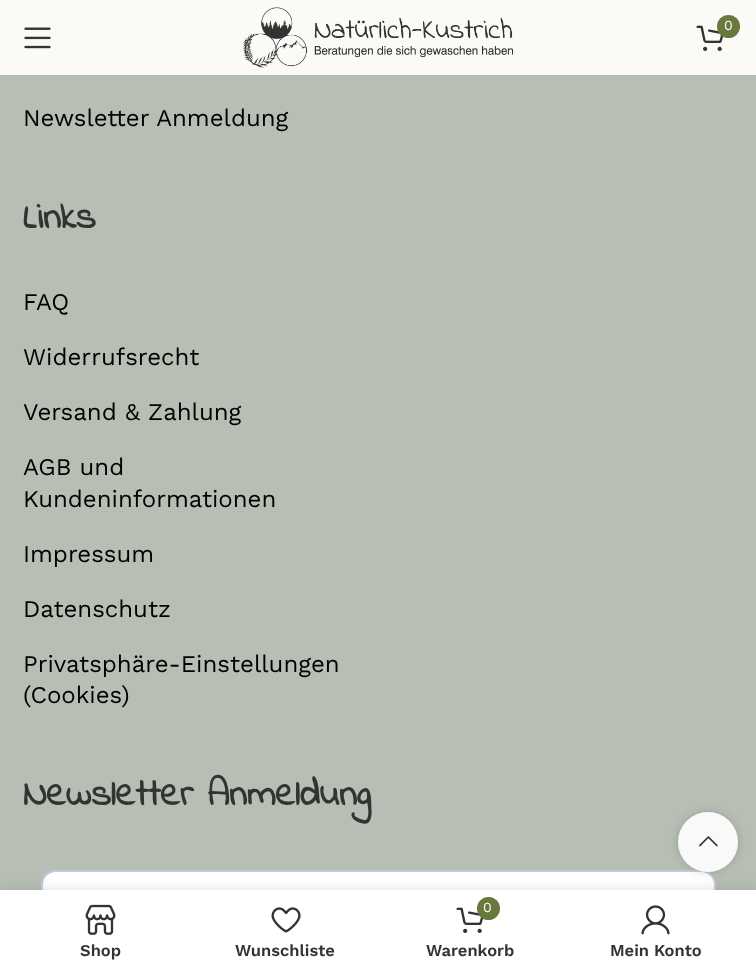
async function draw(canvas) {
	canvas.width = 756;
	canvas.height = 971;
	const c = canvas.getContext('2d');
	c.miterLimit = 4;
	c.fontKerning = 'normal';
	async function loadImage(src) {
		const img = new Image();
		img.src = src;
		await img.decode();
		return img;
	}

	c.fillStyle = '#b7beb4';
	c.fillRect(0, 0, 756, 971);
	c.fillStyle = '#fbfaf7';
	c.fillRect(0, 0, 756, 75);
	c.drawImage(await loadImage('img1.png'), 243, 7, 270, 61);
	c.drawImage(await loadImage('img2.png'), 696, 25, 28, 26);
	c.fillStyle = '#69793b';
	c.beginPath();
	c.arc(728.5, 26.5, 11.5, 0, 2 * Math.PI);
	c.fill();
	c.font = '14px Work Sans';
	c.fillStyle = '#fff';
	c.fillText('0', 724, 30);
	c.drawImage(await loadImage('img3.png'), 24, 27, 27, 22);
	c.font = '24px Work Sans';
	c.fillStyle = '#000';
	c.fillText('Newsletter Anmeldung', 23, 126);
	c.font = 'bold 38.25px Indie Flower';
	c.fillStyle = '#333';
	c.fillText('Links', 23, 228);
	c.font = '24px Work Sans';
	c.fillStyle = '#000';
	for (const [text, x, y] of [
		['FAQ', 23, 310],
		['Widerrufsrecht', 23, 365],
		['Versand & Zahlung', 23, 420],
		['AGB und', 23, 475],
		['Kundeninformationen', 23, 507],
		['Impressum', 23, 562],
		['Datenschutz', 23, 617],
		['Privatsphäre-Einstellungen', 23, 672],
		['(Cookies)', 23, 703],
	]) {
		c.fillText(text, x, y);
	}
	c.font = 'bold 38.25px Indie Flower';
	c.fillStyle = '#333';
	c.fillText('Newsletter Anmeldung', 23, 805);
	c.fillStyle = '#fff';
	c.beginPath();
	c.roundRect(42, 871, 673, 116, 14);
	c.fill();
	c.strokeStyle = '#c0ccd9';
	c.lineWidth = 2;
	c.stroke();
	c.save();
	c.beginPath();
	c.moveTo(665, 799);
	c.lineTo(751, 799);
	c.lineTo(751, 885);
	c.lineTo(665, 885);
	c.closePath();
	c.moveTo(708, 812);
	c.bezierCurveTo(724.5, 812, 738, 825.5, 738, 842);
	c.bezierCurveTo(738, 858.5, 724.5, 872, 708, 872);
	c.bezierCurveTo(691.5, 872, 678, 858.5, 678, 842);
	c.bezierCurveTo(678, 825.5, 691.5, 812, 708, 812);
	c.closePath();
	c.clip('evenodd');
	c.fillStyle = '#0000002b';
	c.filter = 'blur(4px)';
	c.beginPath();
	c.roundRect(678, 812, 60, 60, 30);
	c.fill();
	c.filter = 'none';
	c.restore();
	c.fillStyle = '#ffffffe6';
	c.beginPath();
	c.arc(708, 842, 30, 0, 2 * Math.PI);
	c.fill();
	c.drawImage(await loadImage('img4.png'), 699, 836, 19, 11);
	c.fillStyle = '#0000001f';
	c.filter = 'blur(7px)';
	c.beginPath();
	c.rect(0, 890, 756, 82);
	c.fill();
	c.filter = 'none';
	c.fillStyle = '#fff';
	c.fillRect(0, 890, 756, 81);
	c.drawImage(await loadImage('img5.png'), 85, 904, 31, 31);
	c.font = '600 16.5px Work Sans';
	c.fillStyle = '#333';
	c.fillText('Shop', 80, 956);
	c.drawImage(await loadImage('img6.png'), 271, 907, 30, 26);
	c.fillText('Wunschliste', 235, 956);
	c.drawImage(await loadImage('img7.png'), 456, 907, 28, 26);
	c.fillStyle = '#69793b';
	c.beginPath();
	c.arc(488.5, 908.5, 11.5, 0, 2 * Math.PI);
	c.fill();
	c.font = '14px Work Sans';
	c.fillStyle = '#fff';
	c.fillText('0', 483, 912);
	c.font = '600 16.5px Work Sans';
	c.fillStyle = '#333';
	c.fillText('Warenkorb', 426, 956);
	c.drawImage(await loadImage('img8.png'), 641, 905, 29, 30);
	c.fillText('Mein Konto', 610, 956);
}

draw(document.querySelector('canvas'));
